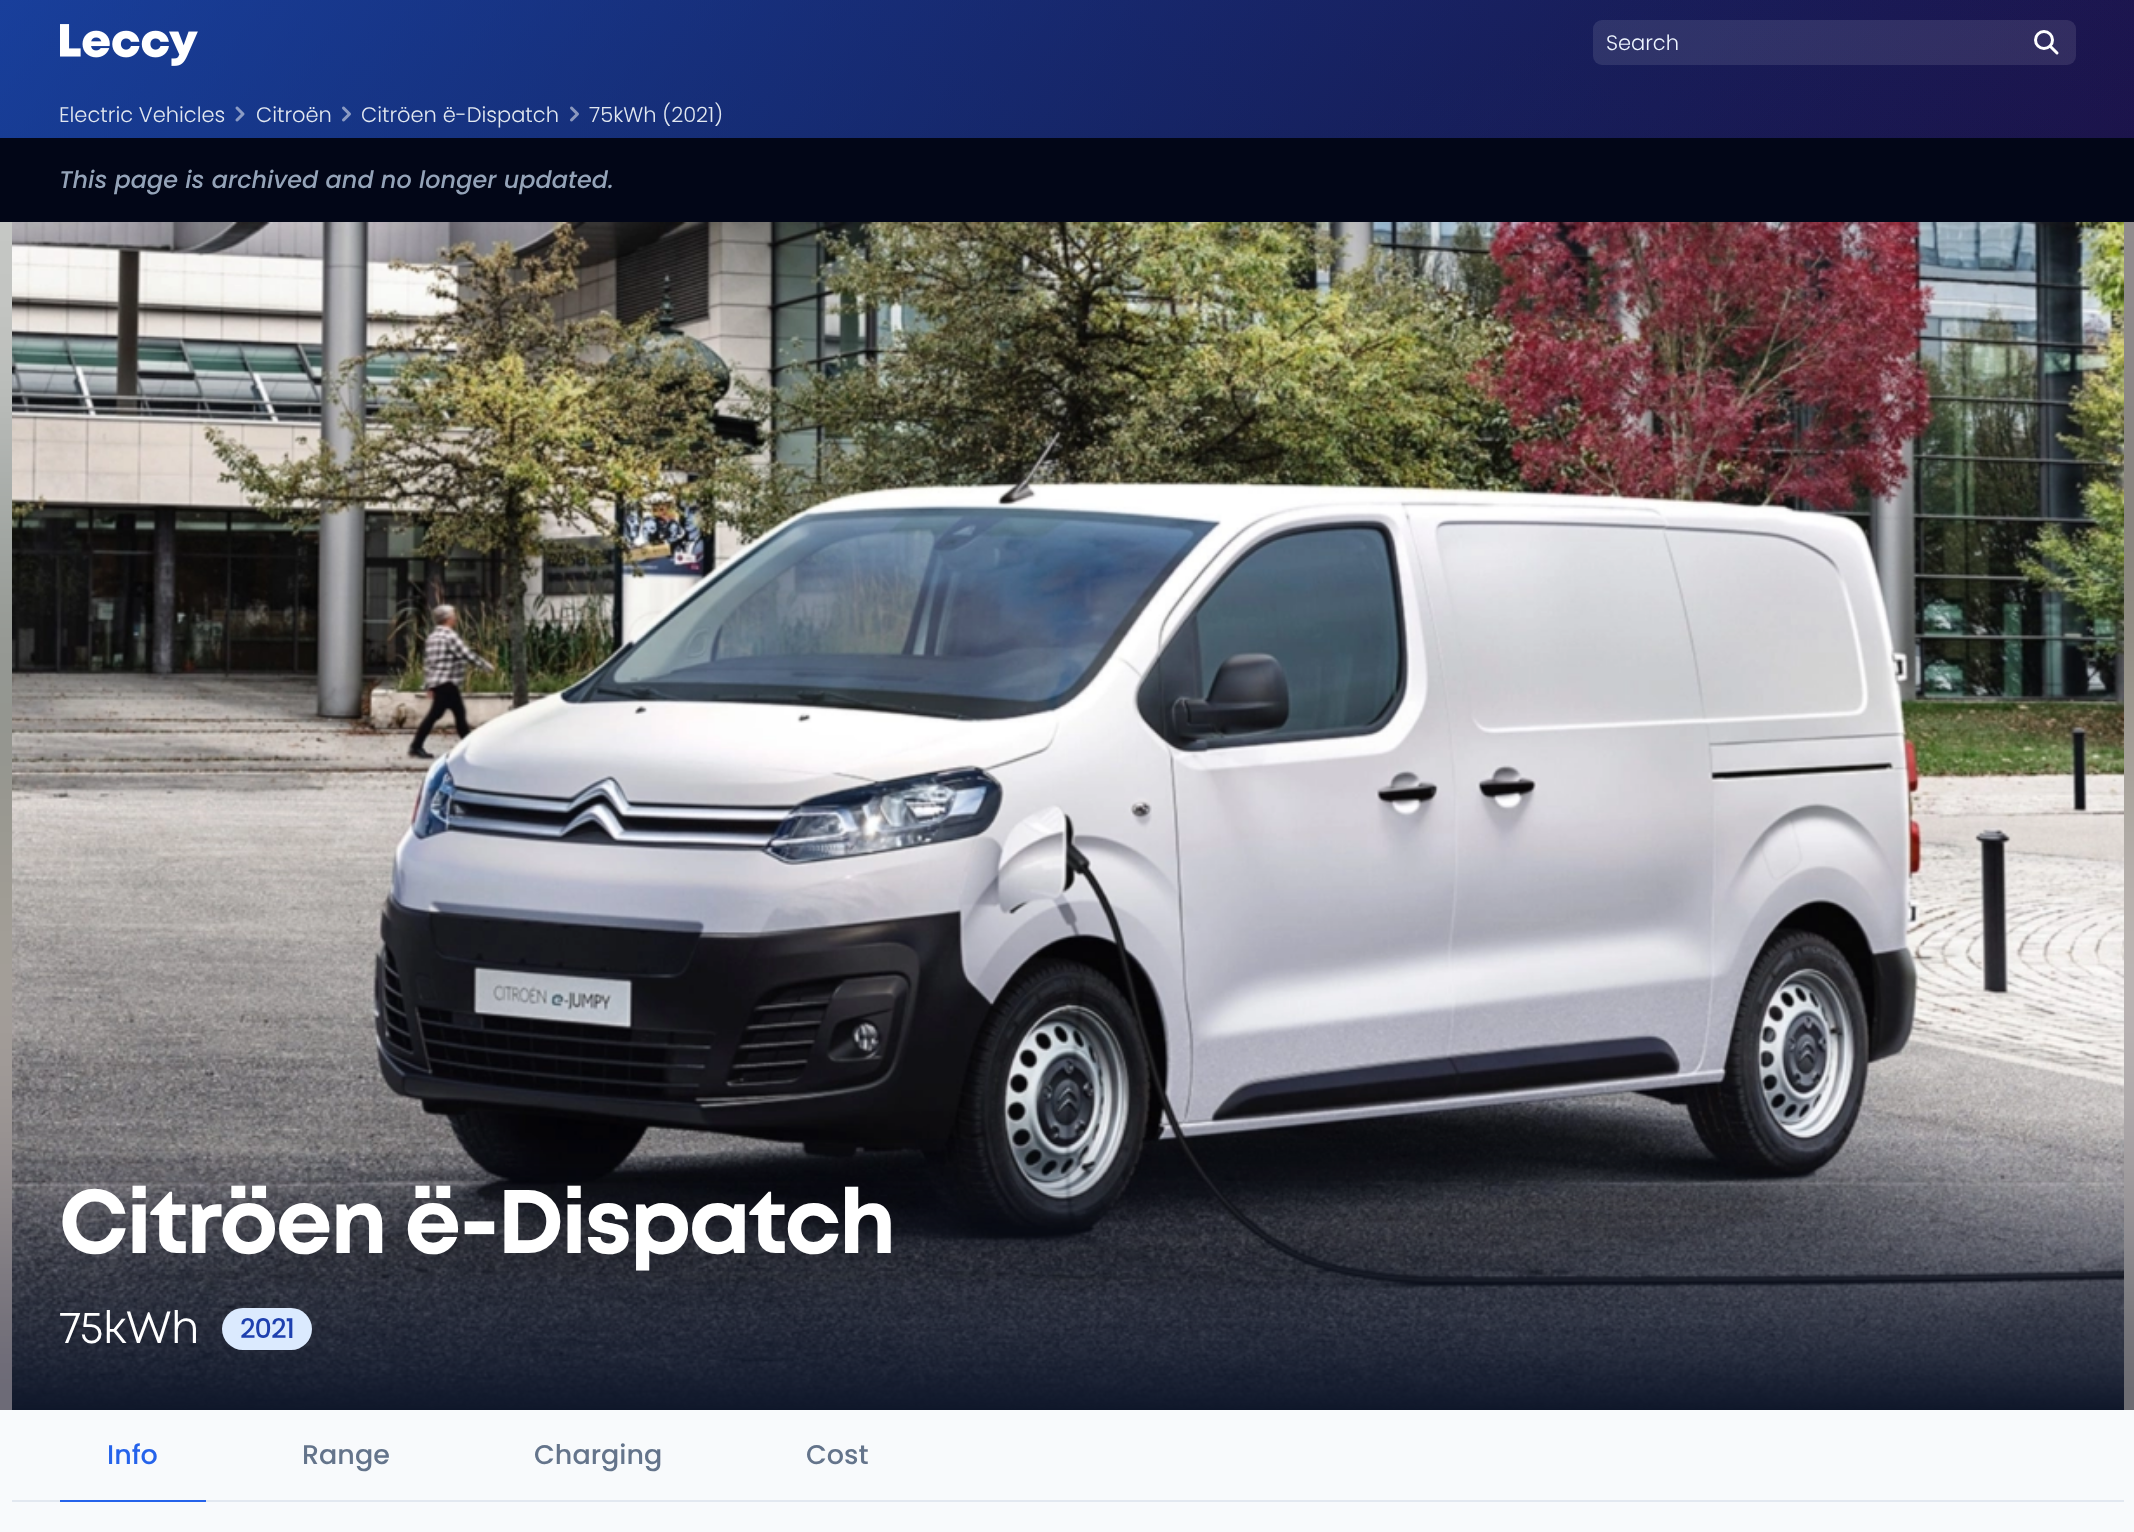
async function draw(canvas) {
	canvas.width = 2134;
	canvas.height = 1532;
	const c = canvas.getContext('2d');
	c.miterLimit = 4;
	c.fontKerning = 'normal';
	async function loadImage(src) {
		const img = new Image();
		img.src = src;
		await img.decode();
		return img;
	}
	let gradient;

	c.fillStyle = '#fff';
	c.fillRect(0, 0, 2134, 1532);
	gradient = c.createLinearGradient(1529, 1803, 606, -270);
	gradient.addColorStop(0, '#111341');
	gradient.addColorStop(0.71, '#020618');
	c.fillStyle = gradient;
	c.fillRect(0, 0, 2134, 138);
	gradient = c.createLinearGradient(1822, -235, 312, 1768);
	gradient.addColorStop(0, '#7b39ec33');
	gradient.addColorStop(0.71, '#7b39ec00');
	c.fillStyle = gradient;
	c.fillRect(0, 0, 2134, 138);
	gradient = c.createLinearGradient(18, -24, 2116, 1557);
	gradient.addColorStop(0, '#2363eb99');
	gradient.addColorStop(0.71, '#2363eb00');
	c.fillStyle = gradient;
	c.fillRect(0, 0, 2134, 138);
	c.drawImage(await loadImage('img1.png'), 60, 24, 138, 42);
	c.fillStyle = '#ffffff1a';
	c.beginPath();
	c.roundRect(1593, 20, 483, 45, 9);
	c.fill();
	c.font = '300 21px Poppins';
	c.fillStyle = '#eff6ff';
	c.fillText('Search', 1606, 50);
	c.beginPath();
	c.arc(2044, 40, 8.5, 0, 2 * Math.PI);
	c.strokeStyle = '#fff';
	c.lineWidth = 3;
	c.stroke();
	c.beginPath();
	c.moveTo(2057, 53);
	c.lineTo(2050.5, 46.5);
	c.lineCap = 'round';
	c.lineJoin = 'round';
	c.stroke();
	c.fillStyle = '#e2e8f0';
	c.fillText('Electric Vehicles', 59, 122);
	c.drawImage(await loadImage('img2.png'), 235, 106, 10, 16);
	c.fillText('Citroën', 256, 122);
	c.drawImage(await loadImage('img3.png'), 342, 106, 9, 16);
	c.fillText('Citröen ë-Dispatch', 361, 122);
	c.drawImage(await loadImage('img4.png'), 570, 106, 9, 16);
	c.fillText('75kWh (2021)', 589, 122);
	c.fillStyle = '#020617';
	c.fillRect(0, 138, 2134, 84);
	c.font = 'italic 500 24px Poppins';
	c.fillStyle = '#94a3b8';
	c.fillText('This page is archived and no longer updated.', 59, 188);
	c.drawImage(await loadImage('img5.png'), 0, 222, 2134, 1188);
	c.drawImage(await loadImage('img6.png'), 12, 222, 2112, 1188);
	c.letterSpacing = '-2.25px';
	c.font = '90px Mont';
	c.fillStyle = '#fff';
	c.fillText('Citröen ë-Dispatch', 59, 1253);
	c.letterSpacing = '-1px';
	c.font = '45px "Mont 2"';
	c.fillText('75kWh', 59, 1343);
	c.fillStyle = '#dbeafe';
	c.beginPath();
	c.roundRect(222, 1308, 90, 42, 21);
	c.fill();
	c.font = '500 27px Poppins';
	c.fillStyle = '#1e40af';
	c.fillText('2021', 240, 1338);
	for (const [x, y, w, h, color] of [
		[0, 1410, 2134, 122, '#f8fafc'],
		[12, 1500, 2112, 2, '#e2e8f0'],
		[60, 1500, 146, 2, '#2563eb'],
	]) {
		c.fillStyle = color;
		c.fillRect(x, y, w, h);
	}
	c.letterSpacing = '0px';
	c.fillText('Info', 107, 1464);
	c.fillStyle = '#64748b';
	for (const [text, x, y] of [
		['Range', 302, 1464],
		['Charging', 534, 1464],
		['Cost', 806, 1464],
	]) {
		c.fillText(text, x, y);
	}
}

draw(document.querySelector('canvas'));
